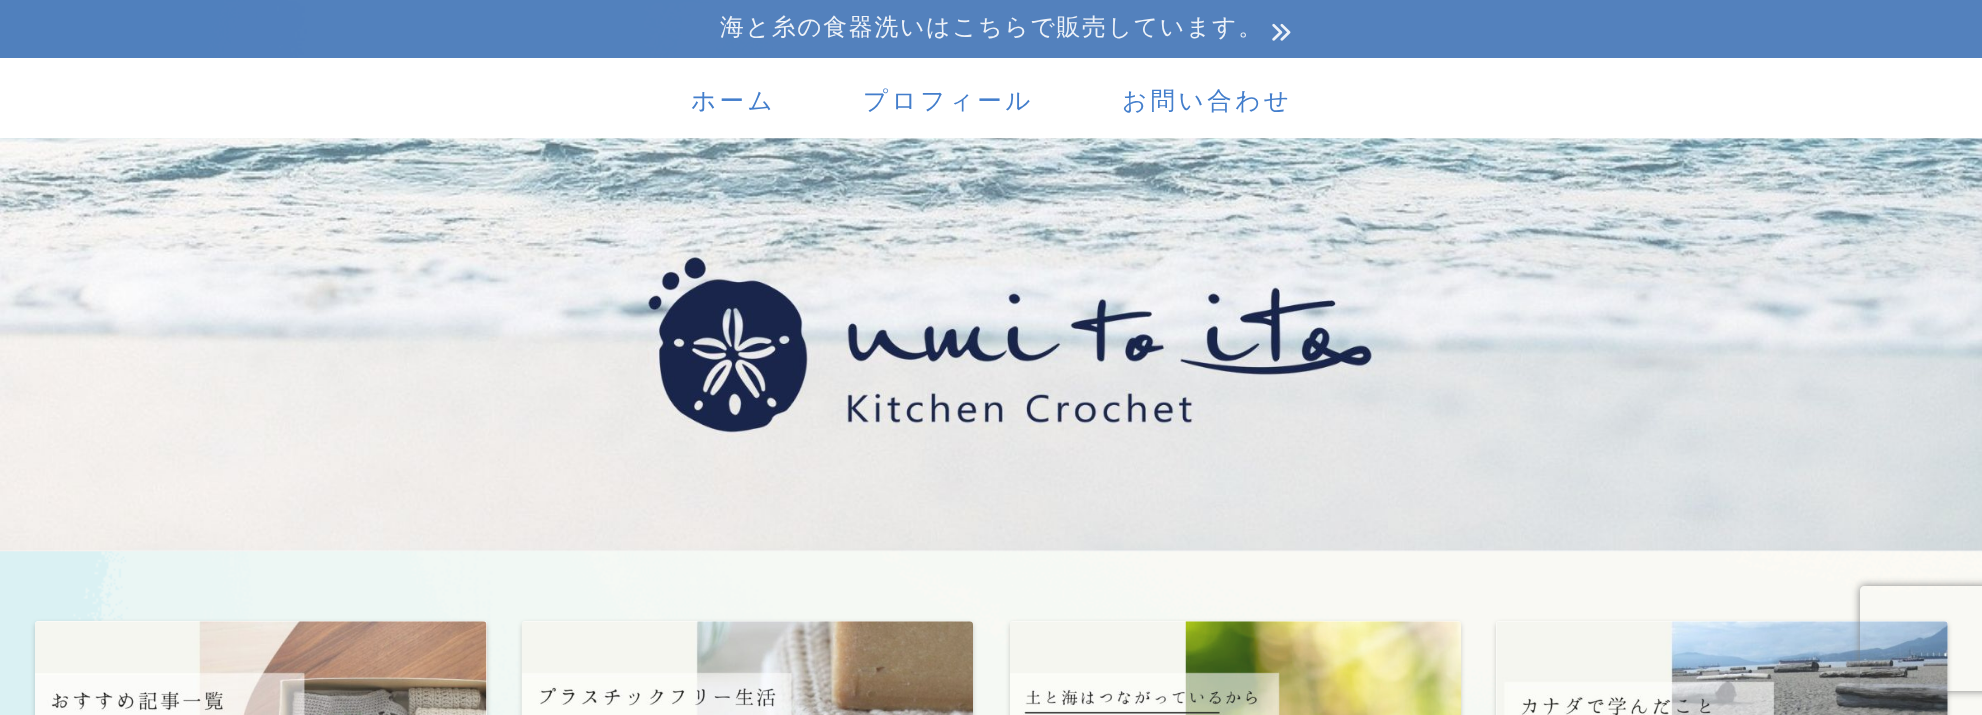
async function draw(canvas) {
	canvas.width = 1982;
	canvas.height = 715;
	const c = canvas.getContext('2d');
	c.miterLimit = 4;
	c.fontKerning = 'normal';
	async function loadImage(src) {
		const img = new Image();
		img.src = src;
		await img.decode();
		return img;
	}

	c.fillStyle = '#fffaf2';
	c.fillRect(0, 0, 1982, 715);
	c.drawImage(await loadImage('img1.png'), 0, 0, 1982, 715);
	c.fillStyle = '#4073b7e6';
	c.fillRect(0, 0, 1982, 58);
	c.letterSpacing = '1.75px';
	c.font = '500 23.8px WenQuanYi Zen Hei';
	c.fillStyle = '#eef2f8';
	c.fillText('海と糸の食器洗いはこちらで販売しています。', 720, 35);
	c.drawImage(await loadImage('img2.png'), 1272, 23, 19, 18);
	c.fillStyle = '#fff';
	c.fillRect(0, 58, 1982, 80);
	c.letterSpacing = '3.5px';
	c.font = '500 24.5px WenQuanYi Zen Hei';
	c.fillStyle = '#437ecc';
	for (const [text, x, y] of [
		['ホーム', 691, 109],
		['プロフィール', 863, 109],
		['お問い合わせ', 1122, 109],
	]) {
		c.fillText(text, x, y);
	}
	c.drawImage(await loadImage('img3.png'), 0, 138, 1982, 414);
	c.fillStyle = '#0000002e';
	c.filter = 'blur(2.5px)';
	c.beginPath();
	c.roundRect(35, 623, 452, 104, 4);
	c.fill();
	c.filter = 'none';
	c.fillStyle = '#fff';
	c.beginPath();
	c.roundRect(35, 621, 452, 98, 4);
	c.fill();
	c.fillStyle = '#ffffffe6';
	c.beginPath();
	c.roundRect(35, 621, 452, 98, 4);
	c.fill();
	c.drawImage(await loadImage('img4.png'), 35, 621, 452, 94);
	c.fillStyle = '#0000002e';
	c.filter = 'blur(2.5px)';
	c.beginPath();
	c.roundRect(522, 623, 451, 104, 4);
	c.fill();
	c.filter = 'none';
	c.fillStyle = '#fff';
	c.beginPath();
	c.roundRect(522, 621, 451, 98, 4);
	c.fill();
	c.fillStyle = '#ffffffe6';
	c.beginPath();
	c.roundRect(522, 621, 451, 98, 4);
	c.fill();
	c.drawImage(await loadImage('img5.png'), 521, 621, 452, 94);
	c.fillStyle = '#0000002e';
	c.filter = 'blur(2.5px)';
	c.beginPath();
	c.roundRect(1010, 623, 451, 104, 4);
	c.fill();
	c.filter = 'none';
	c.fillStyle = '#fff';
	c.beginPath();
	c.roundRect(1010, 621, 451, 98, 4);
	c.fill();
	c.fillStyle = '#ffffffe6';
	c.beginPath();
	c.roundRect(1010, 621, 451, 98, 4);
	c.fill();
	c.drawImage(await loadImage('img6.png'), 1010, 621, 452, 94);
	c.fillStyle = '#0000002e';
	c.filter = 'blur(2.5px)';
	c.beginPath();
	c.roundRect(1496, 623, 452, 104, 4);
	c.fill();
	c.filter = 'none';
	c.fillStyle = '#fff';
	c.beginPath();
	c.roundRect(1496, 621, 452, 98, 4);
	c.fill();
	c.fillStyle = '#ffffffe6';
	c.beginPath();
	c.roundRect(1496, 621, 452, 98, 4);
	c.fill();
	c.drawImage(await loadImage('img7.png'), 1496, 621, 452, 94);
	c.save();
	c.beginPath();
	c.moveTo(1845, 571);
	c.lineTo(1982, 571);
	c.lineTo(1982, 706);
	c.lineTo(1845, 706);
	c.closePath();
	c.moveTo(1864, 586);
	c.lineTo(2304, 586);
	c.bezierCurveTo(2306, 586, 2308, 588, 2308, 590);
	c.lineTo(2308, 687);
	c.bezierCurveTo(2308, 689, 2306, 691, 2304, 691);
	c.lineTo(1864, 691);
	c.bezierCurveTo(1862, 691, 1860, 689, 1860, 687);
	c.lineTo(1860, 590);
	c.bezierCurveTo(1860, 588, 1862, 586, 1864, 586);
	c.closePath();
	c.clip('evenodd');
	c.fillStyle = '#808080';
	c.filter = 'blur(4.5px)';
	c.beginPath();
	c.roundRect(1860, 586, 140, 105, 4);
	c.fill();
	c.filter = 'none';
	c.restore();
}

draw(document.querySelector('canvas'));
